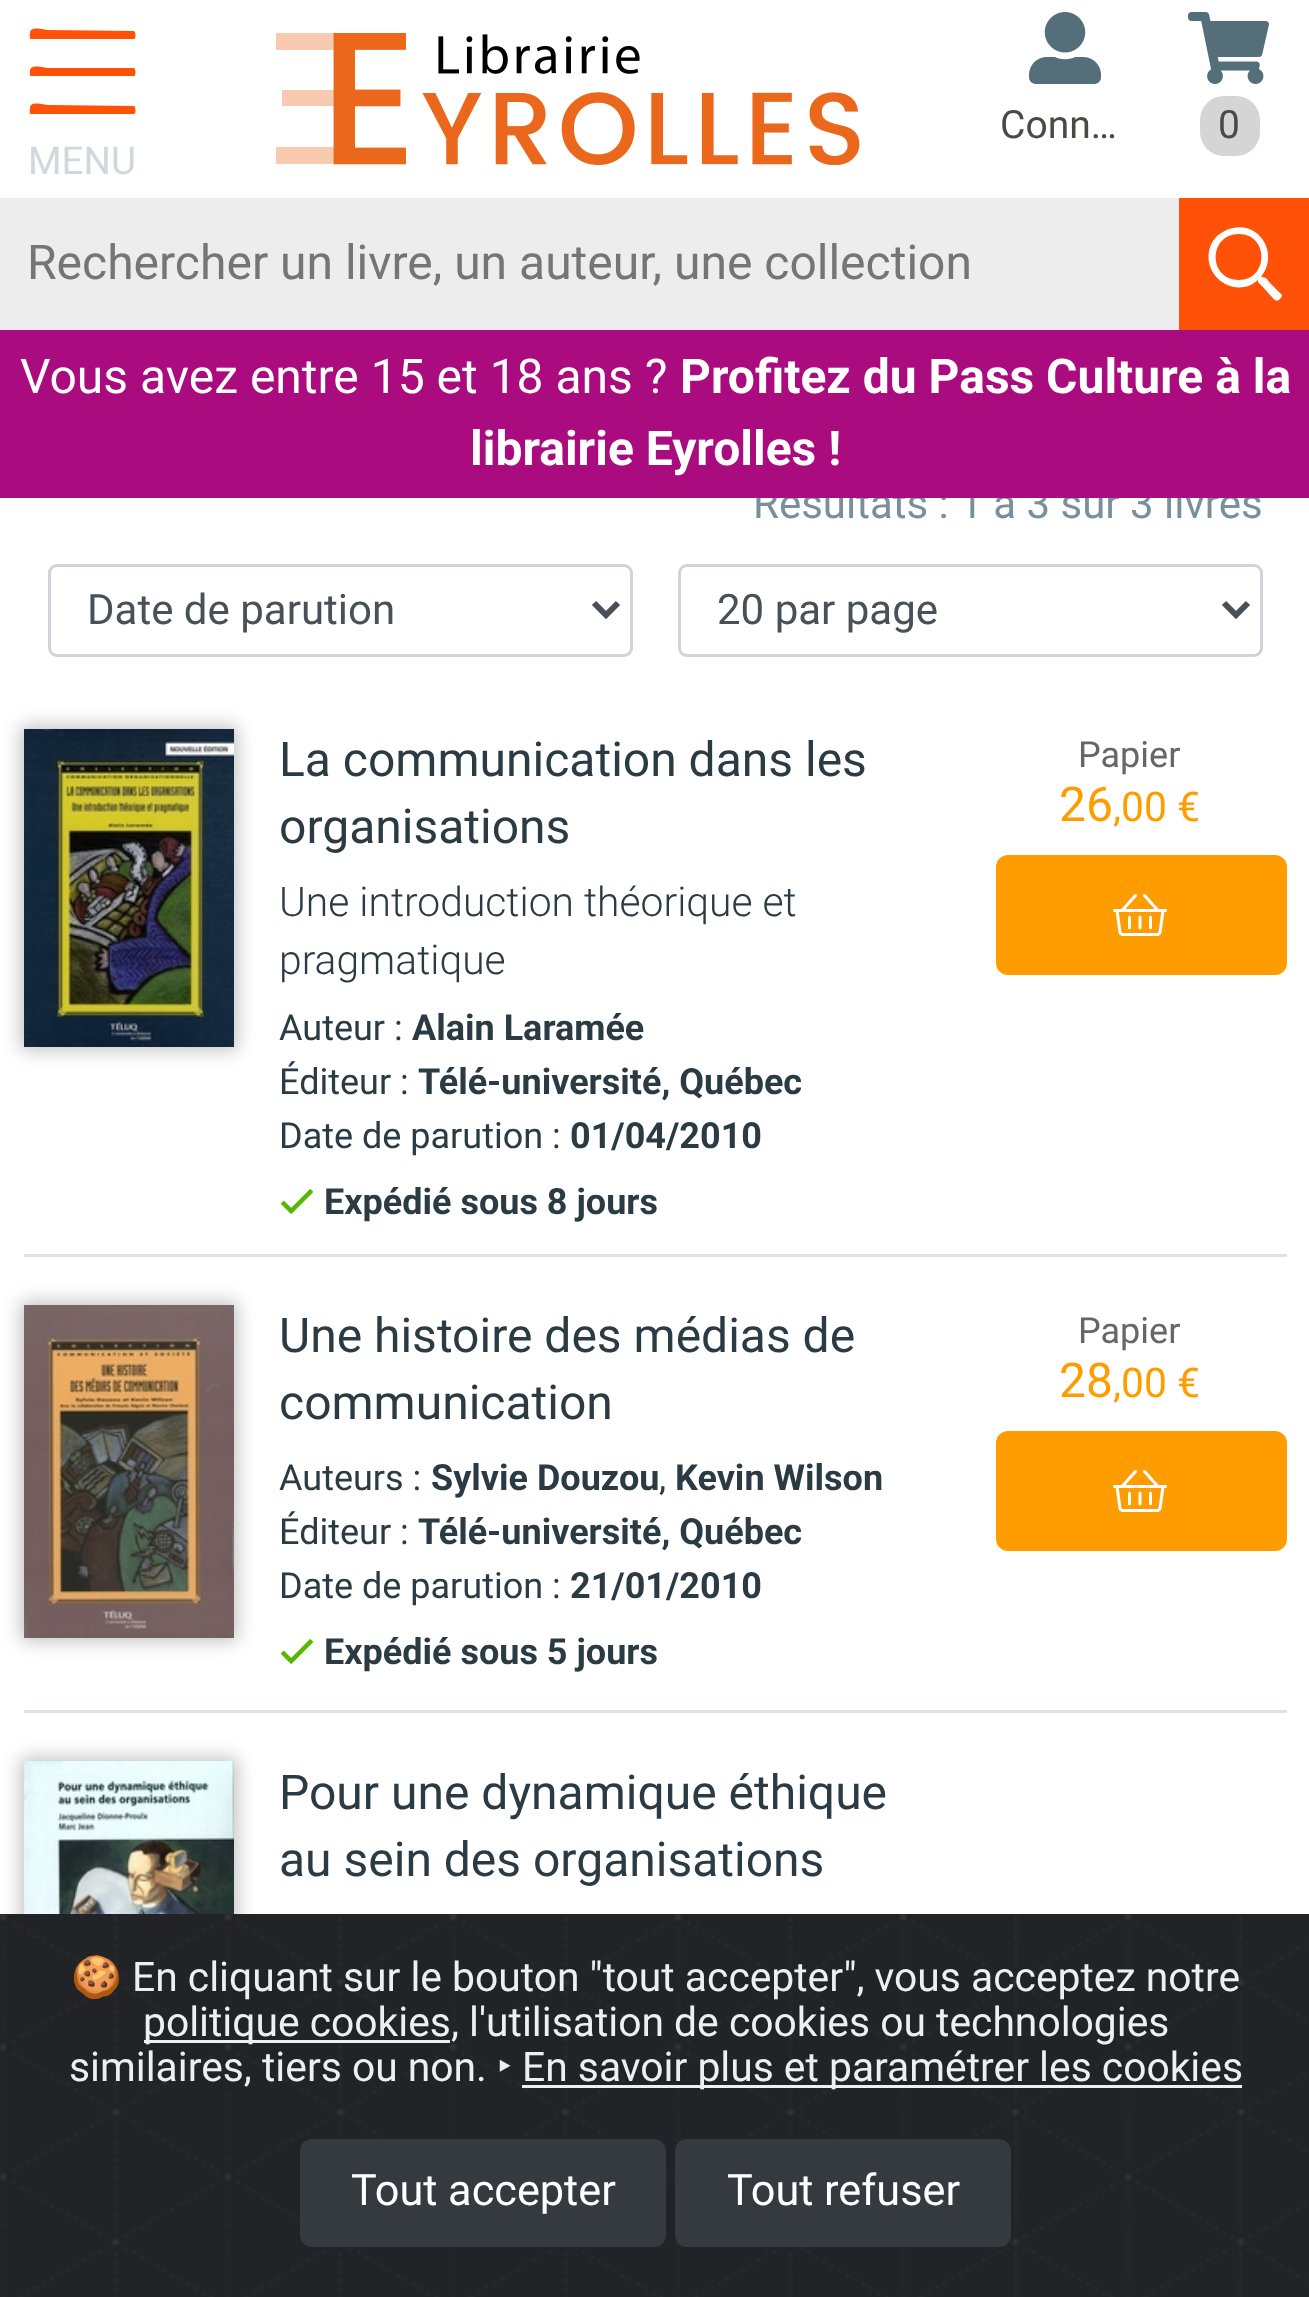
async function draw(canvas) {
	canvas.width = 1309;
	canvas.height = 2297;
	const c = canvas.getContext('2d');
	c.miterLimit = 4;
	c.fontKerning = 'normal';
	async function loadImage(src) {
		const img = new Image();
		img.src = src;
		await img.decode();
		return img;
	}

	c.fillStyle = '#fff';
	c.fillRect(0, 0, 1309, 2297);
	c.drawImage(await loadImage('img1.png'), 1029, 12, 72, 72);
	c.font = '39px Roboto';
	c.fillStyle = '#494948';
	c.fillText('Conn…', 1000, 138);
	c.drawImage(await loadImage('img2.png'), 1188, 12, 81, 72);
	c.fillStyle = '#d5d5d5';
	c.beginPath();
	c.roundRect(1200, 96, 60, 60, 24);
	c.fill();
	c.fillStyle = '#494948';
	c.fillText('0', 1218, 138);
	c.fillStyle = '#ff5208';
	c.beginPath();
	c.moveTo(134, 39);
	c.lineTo(31, 39);
	c.bezierCurveTo(29, 39, 30, 34, 30, 33);
	c.bezierCurveTo(30, 25, 45, 30, 48, 30);
	c.lineTo(134, 31);
	c.bezierCurveTo(136, 32, 136, 39, 134, 39);
	c.closePath();
	c.moveTo(134, 76);
	c.lineTo(31, 76);
	c.bezierCurveTo(29, 76, 30, 72, 30, 71);
	c.bezierCurveTo(30, 63, 45, 68, 48, 68);
	c.lineTo(134, 68);
	c.bezierCurveTo(136, 69, 136, 76, 134, 76);
	c.closePath();
	c.moveTo(134, 114);
	c.lineTo(31, 114);
	c.bezierCurveTo(29, 114, 30, 109, 30, 108);
	c.bezierCurveTo(30, 100, 45, 105, 48, 105);
	c.lineTo(134, 106);
	c.bezierCurveTo(136, 107, 136, 114, 134, 114);
	c.closePath();
	c.fill();
	c.font = '38.5px Roboto';
	c.fillStyle = '#cfd8dc';
	c.fillText('MENU', 28, 174);
	c.drawImage(await loadImage('img3.png'), 276, 33, 584, 132);
	c.fillStyle = '#ededed';
	c.fillRect(0, 198, 1179, 132);
	c.font = '48px Roboto';
	c.fillStyle = '#757575';
	c.fillText('Rechercher un livre, un auteur, une collection', 27, 279);
	c.fillStyle = '#ff5208';
	c.fillRect(1179, 198, 130, 132);
	c.fillStyle = '#fff';
	c.beginPath();
	c.moveTo(1282, 295);
	c.lineTo(1270, 283);
	c.bezierCurveTo(1267, 279, 1266, 277, 1261, 277);
	c.bezierCurveTo(1279, 255, 1261, 222, 1233, 228);
	c.bezierCurveTo(1227, 229, 1222, 232, 1217, 236);
	c.bezierCurveTo(1213, 240, 1210, 245, 1209, 251);
	c.bezierCurveTo(1204, 279, 1237, 299, 1258, 280);
	c.bezierCurveTo(1258, 283, 1259, 283, 1262, 286);
	c.lineTo(1270, 295);
	c.bezierCurveTo(1274, 299, 1276, 303, 1280, 299);
	c.lineTo(1282, 296);
	c.closePath();
	c.moveTo(1239, 280);
	c.bezierCurveTo(1208, 280, 1208, 234, 1239, 234);
	c.bezierCurveTo(1269, 234, 1269, 280, 1239, 280);
	c.closePath();
	c.fill();
	c.font = '42px Roboto';
	c.fillStyle = '#78909c';
	c.fillText('Résultats : 1 à 3 sur 3 livres', 753, 518);
	c.fillStyle = '#aa0b7e';
	c.fillRect(0, 330, 1309, 168);
	c.font = '48px Roboto';
	c.fillStyle = '#fff';
	c.fillText('Vous avez entre 15 et 18 ans ?', 20, 393);
	c.font = 'bold 48px Roboto';
	c.fillText('Profitez du Pass Culture à la', 680, 393);
	c.fillText('librairie Eyrolles !', 470, 465);
	c.beginPath();
	c.roundRect(49.5, 565.5, 582, 90, 7.5);
	c.strokeStyle = '#ced4da';
	c.lineWidth = 3;
	c.stroke();
	c.beginPath();
	c.moveTo(594, 603);
	c.lineTo(606, 615);
	c.lineTo(618, 603);
	c.strokeStyle = '#495057';
	c.lineWidth = 6;
	c.stroke();
	c.font = '42px Roboto';
	c.fillStyle = '#495057';
	c.fillText('Date de parution', 87, 624);
	c.beginPath();
	c.roundRect(679.5, 565.5, 582, 90, 7.5);
	c.strokeStyle = '#ced4da';
	c.lineWidth = 3;
	c.stroke();
	c.beginPath();
	c.moveTo(1224, 603);
	c.lineTo(1236, 615);
	c.lineTo(1248, 603);
	c.strokeStyle = '#495057';
	c.lineWidth = 6;
	c.stroke();
	c.fillText('20 par page', 717, 624);
	c.fillStyle = '#dee2e6';
	c.fillRect(24, 1254, 1263, 3);
	c.fillStyle = '#00000040';
	c.filter = 'blur(9px)';
	c.beginPath();
	c.rect(21, 726, 216, 324);
	c.fill();
	c.filter = 'none';
	c.drawImage(await loadImage('img4.png'), 24, 729, 210, 318);
	c.font = '48px Roboto';
	c.fillStyle = '#2b3b43';
	c.fillText('La communication dans les', 279, 776);
	c.fillText('organisations', 279, 843);
	c.font = '300 40.8px Roboto';
	c.fillText('Une introduction théorique et', 279, 916);
	c.fillText('pragmatique', 279, 974);
	c.font = '36px Roboto';
	c.fillText('Auteur :', 279, 1040);
	c.font = 'bold 36px Roboto';
	c.fillText('Alain Laramée', 412, 1040);
	c.font = '36px Roboto';
	c.fillText('Éditeur :', 279, 1094);
	c.font = 'bold 36px Roboto';
	c.fillText('Télé-université, Québec', 418, 1094);
	c.font = '36px Roboto';
	c.fillText('Date de parution :', 279, 1148);
	c.font = 'bold 36px Roboto';
	c.fillText('01/04/2010', 570, 1148);
	c.drawImage(await loadImage('img5.png'), 280, 1189, 34, 25);
	c.fillText('Expédié sous 8 jours', 324, 1214);
	c.font = '36px Roboto';
	c.fillStyle = '#666';
	c.fillText('Papier', 1078, 767);
	c.font = '48px Roboto';
	c.fillStyle = '#ff9d00';
	c.fillText('26', 1059, 821);
	c.font = '40.8px Roboto';
	c.fillText(',00 €', 1113, 821);
	c.beginPath();
	c.roundRect(996, 855, 291, 120, 12);
	c.fill();
	c.drawImage(await loadImage('img6.png'), 1113, 894, 54, 42);
	c.fillStyle = '#dee2e6';
	c.fillRect(24, 1710, 1263, 3);
	c.fillStyle = '#00000040';
	c.filter = 'blur(9px)';
	c.beginPath();
	c.rect(21, 1302, 216, 339);
	c.fill();
	c.filter = 'none';
	c.drawImage(await loadImage('img7.png'), 24, 1305, 210, 333);
	c.font = '48px Roboto';
	c.fillStyle = '#2b3b43';
	c.fillText('Une histoire des médias de', 279, 1352);
	c.fillText('communication', 279, 1419);
	c.font = '36px Roboto';
	c.fillText('Auteurs :', 279, 1490);
	c.font = 'bold 36px Roboto';
	c.fillText('Sylvie Douzou', 431, 1490);
	c.font = '36px Roboto';
	c.fillText(',', 659, 1490);
	c.font = 'bold 36px Roboto';
	c.fillText('Kevin Wilson', 675, 1490);
	c.font = '36px Roboto';
	c.fillText('Éditeur :', 279, 1544);
	c.font = 'bold 36px Roboto';
	c.fillText('Télé-université, Québec', 418, 1544);
	c.font = '36px Roboto';
	c.fillText('Date de parution :', 279, 1598);
	c.font = 'bold 36px Roboto';
	c.fillText('21/01/2010', 570, 1598);
	c.drawImage(await loadImage('img5.png'), 280, 1639, 34, 25);
	c.fillText('Expédié sous 5 jours', 324, 1664);
	c.font = '36px Roboto';
	c.fillStyle = '#666';
	c.fillText('Papier', 1078, 1343);
	c.font = '48px Roboto';
	c.fillStyle = '#ff9d00';
	c.fillText('28', 1059, 1397);
	c.font = '40.8px Roboto';
	c.fillText(',00 €', 1113, 1397);
	c.beginPath();
	c.roundRect(996, 1431, 291, 120, 12);
	c.fill();
	c.drawImage(await loadImage('img6.png'), 1113, 1470, 54, 42);
	c.fillStyle = '#00000040';
	c.filter = 'blur(9px)';
	c.beginPath();
	c.rect(21, 1758, 216, 327);
	c.fill();
	c.filter = 'none';
	c.drawImage(await loadImage('img8.png'), 24, 1761, 210, 153);
	c.font = '48px Roboto';
	c.fillStyle = '#2b3b43';
	c.fillText('Pour une dynamique éthique', 279, 1809);
	c.fillText('au sein des organisations', 279, 1876);
	c.fillStyle = '#212327';
	c.fillRect(1308, 1914, 1, 383);
	c.drawImage(await loadImage('img9.png'), 0, 1914, 1308, 383);
	c.font = '40.8px Noto Color Emoji';
	c.fillStyle = '#ecf0f1';
	c.fillText('🍪', 71, 1991);
	c.font = '40.8px Roboto';
	c.fillText('En cliquant sur le bouton "tout accepter", vous acceptez notre', 132, 1991);
	c.fillRect(144, 2040, 306, 3);
	c.fillText('politique cookies, l\'utilisation de cookies ou technologies', 143, 2036);
	c.fillText('similaires, tiers ou non.', 69, 2081);
	c.font = '40.8px Noto Sans';
	c.fillText('‣', 497, 2081);
	c.fillRect(522, 2085, 720, 3);
	c.font = '40.8px Roboto';
	c.fillText('En savoir plus et paramétrer les cookies', 522, 2081);
	c.fillStyle = '#343a40';
	c.beginPath();
	c.roundRect(301.5, 2140.5, 363, 105, 10.5);
	c.fill();
	c.strokeStyle = '#343a40';
	c.lineWidth = 3;
	c.stroke();
	c.font = '43.25px Roboto';
	c.fillStyle = '#fff';
	c.fillText('Tout accepter', 351, 2205);
	c.fillStyle = '#343a40';
	c.beginPath();
	c.roundRect(676.5, 2140.5, 333, 105, 10.5);
	c.fill();
	c.stroke();
	c.fillStyle = '#fff';
	c.fillText('Tout refuser', 727, 2205);
}

draw(document.querySelector('canvas'));
